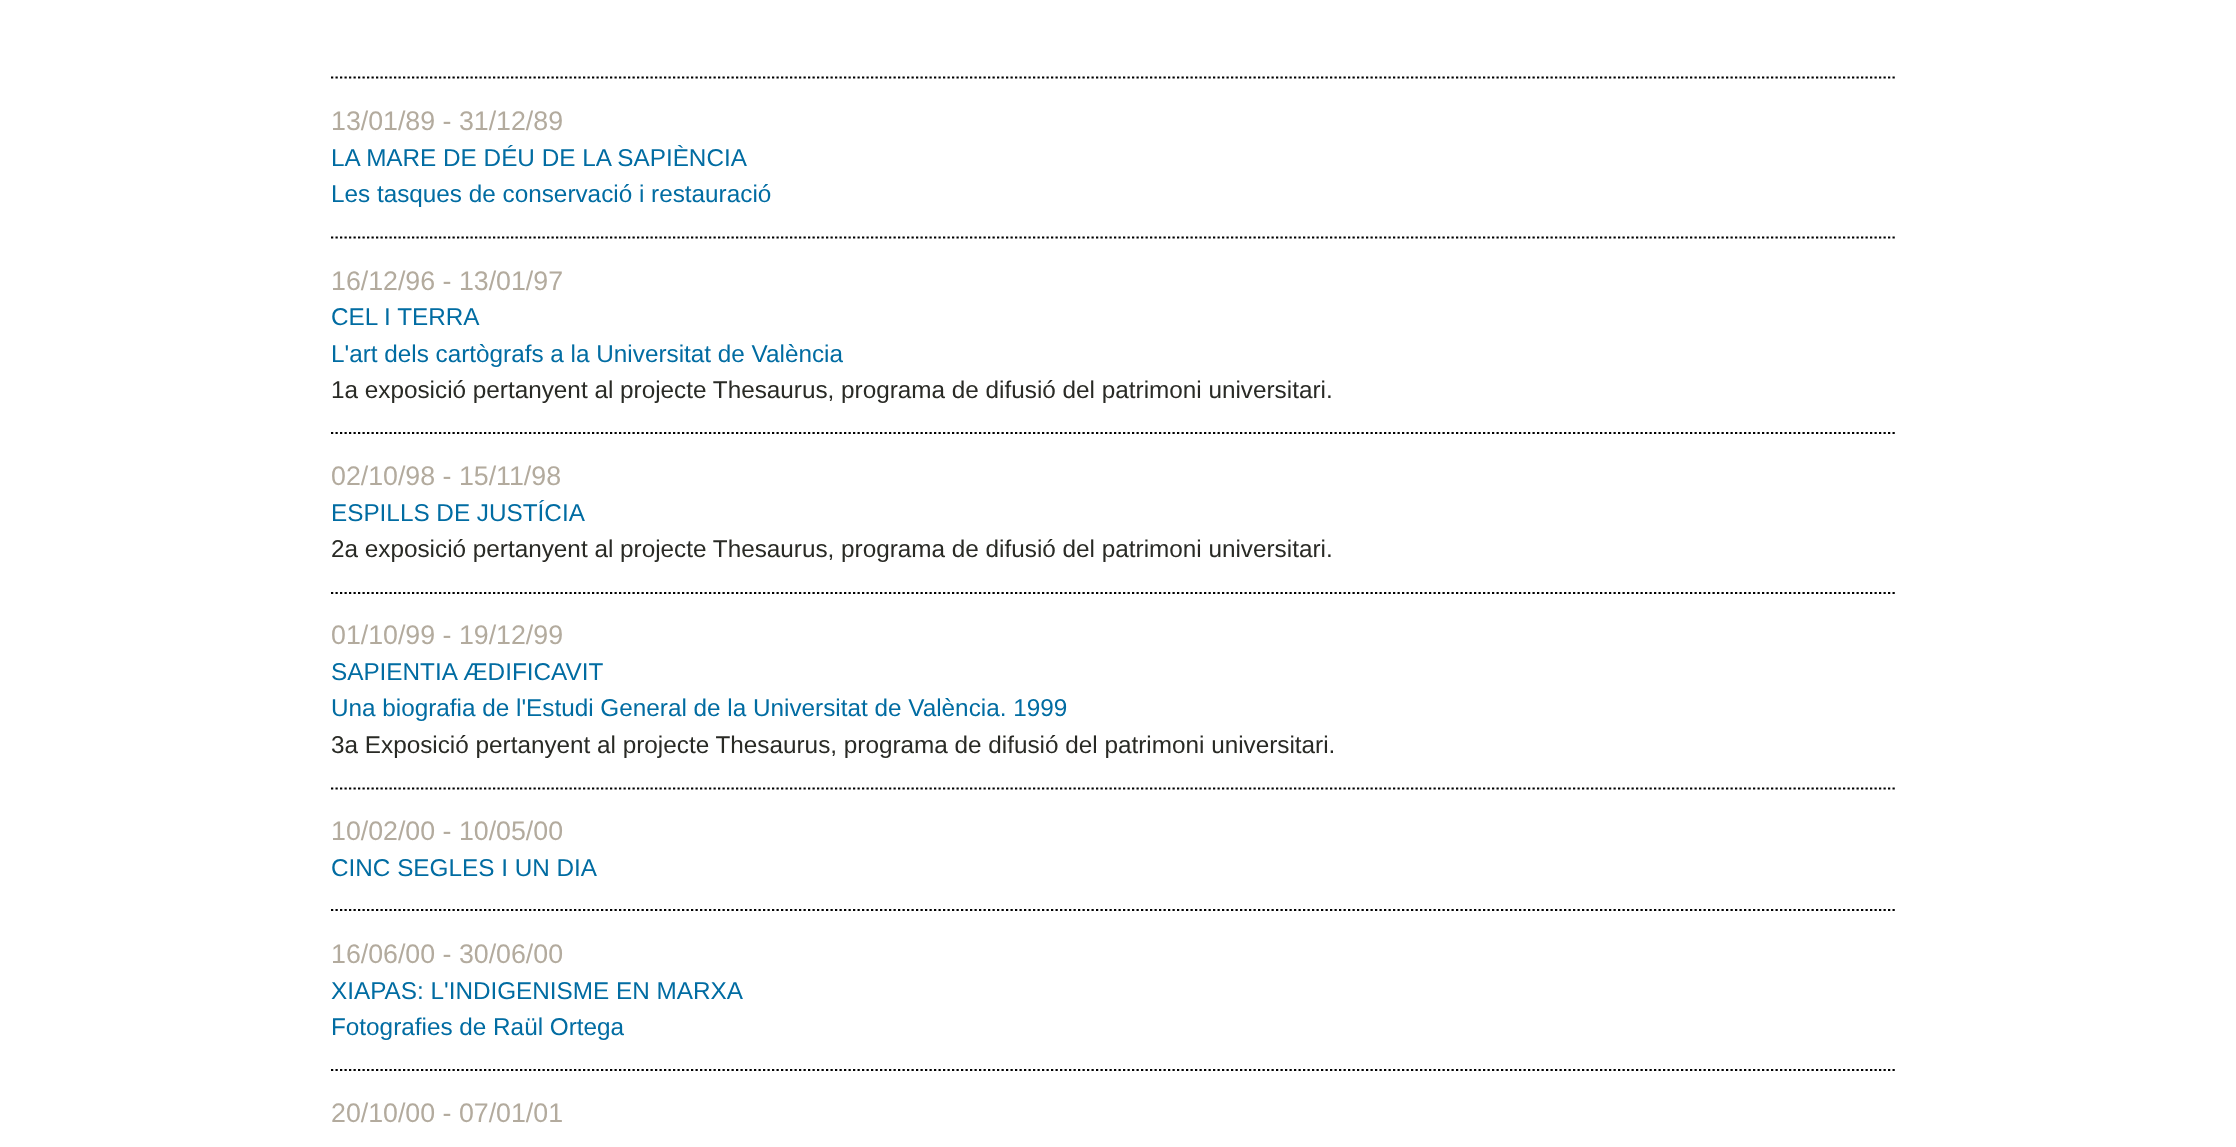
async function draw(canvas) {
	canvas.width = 2236;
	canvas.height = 1147;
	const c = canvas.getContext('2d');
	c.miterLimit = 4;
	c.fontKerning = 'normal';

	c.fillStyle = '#fff';
	c.fillRect(0, 0, 2236, 1147);
	c.beginPath();
	c.moveTo(331, 77.5);
	c.lineTo(1897, 77.5);
	c.strokeStyle = '#000';
	c.lineWidth = 2.2;
	c.setLineDash([2.25, 2.25]);
	c.stroke();
	c.font = '26.75px Liberation Sans';
	c.fillStyle = '#b3ab9e';
	c.fillText('13/01/89 - 31/12/89', 331, 130);
	c.font = '24.3px Liberation Sans';
	c.fillStyle = '#016ca2';
	c.fillText('LA MARE DE DÉU DE LA SAPIÈNCIA', 331, 166);
	c.fillText('Les tasques de conservació i restauració', 331, 202);
	c.beginPath();
	c.moveTo(331, 237.5);
	c.lineTo(1897, 237.5);
	c.stroke();
	c.font = '26.75px Liberation Sans';
	c.fillStyle = '#b3ab9e';
	c.fillText('16/12/96 - 13/01/97', 331, 290);
	c.font = '24.3px Liberation Sans';
	c.fillStyle = '#016ca2';
	c.fillText('CEL I TERRA', 331, 325);
	c.fillText('L\'art dels cartògrafs a la Universitat de València', 331, 362);
	c.fillStyle = '#292a25';
	c.fillText('1a exposició pertanyent al projecte Thesaurus, programa de difusió del patrimoni universitari.', 331, 398);
	c.beginPath();
	c.moveTo(331, 433);
	c.lineTo(1897, 433);
	c.stroke();
	c.font = '26.75px Liberation Sans';
	c.fillStyle = '#b3ab9e';
	c.fillText('02/10/98 - 15/11/98', 331, 485);
	c.font = '24.3px Liberation Sans';
	c.fillStyle = '#016ca2';
	c.fillText('ESPILLS DE JUSTÍCIA', 331, 521);
	c.fillStyle = '#292a25';
	c.fillText('2a exposició pertanyent al projecte Thesaurus, programa de difusió del patrimoni universitari.', 331, 557);
	c.beginPath();
	c.moveTo(331, 593);
	c.lineTo(1897, 593);
	c.stroke();
	c.font = '26.75px Liberation Sans';
	c.fillStyle = '#b3ab9e';
	c.fillText('01/10/99 - 19/12/99', 331, 644);
	c.font = '24.3px Liberation Sans';
	c.fillStyle = '#016ca2';
	c.fillText('SAPIENTIA ÆDIFICAVIT', 331, 680);
	c.fillText('Una biografia de l\'Estudi General de la Universitat de València. 1999', 331, 716);
	c.fillStyle = '#292a25';
	c.fillText('3a Exposició pertanyent al projecte Thesaurus, programa de difusió del patrimoni universitari.', 331, 753);
	c.beginPath();
	c.moveTo(331, 788.5);
	c.lineTo(1897, 788.5);
	c.stroke();
	c.font = '26.75px Liberation Sans';
	c.fillStyle = '#b3ab9e';
	c.fillText('10/02/00 - 10/05/00', 331, 840);
	c.font = '24.3px Liberation Sans';
	c.fillStyle = '#016ca2';
	c.fillText('CINC SEGLES I UN DIA', 331, 876);
	c.beginPath();
	c.moveTo(331, 910);
	c.lineTo(1897, 910);
	c.stroke();
	c.font = '26.75px Liberation Sans';
	c.fillStyle = '#b3ab9e';
	c.fillText('16/06/00 - 30/06/00', 331, 963);
	c.font = '24.3px Liberation Sans';
	c.fillStyle = '#016ca2';
	c.fillText('XIAPAS: L\'INDIGENISME EN MARXA', 331, 999);
	c.fillText('Fotografies de Raül Ortega', 331, 1035);
	c.beginPath();
	c.moveTo(331, 1070);
	c.lineTo(1897, 1070);
	c.stroke();
	c.font = '26.75px Liberation Sans';
	c.fillStyle = '#b3ab9e';
	c.fillText('20/10/00 - 07/01/01', 331, 1122);
}

draw(document.querySelector('canvas'));
